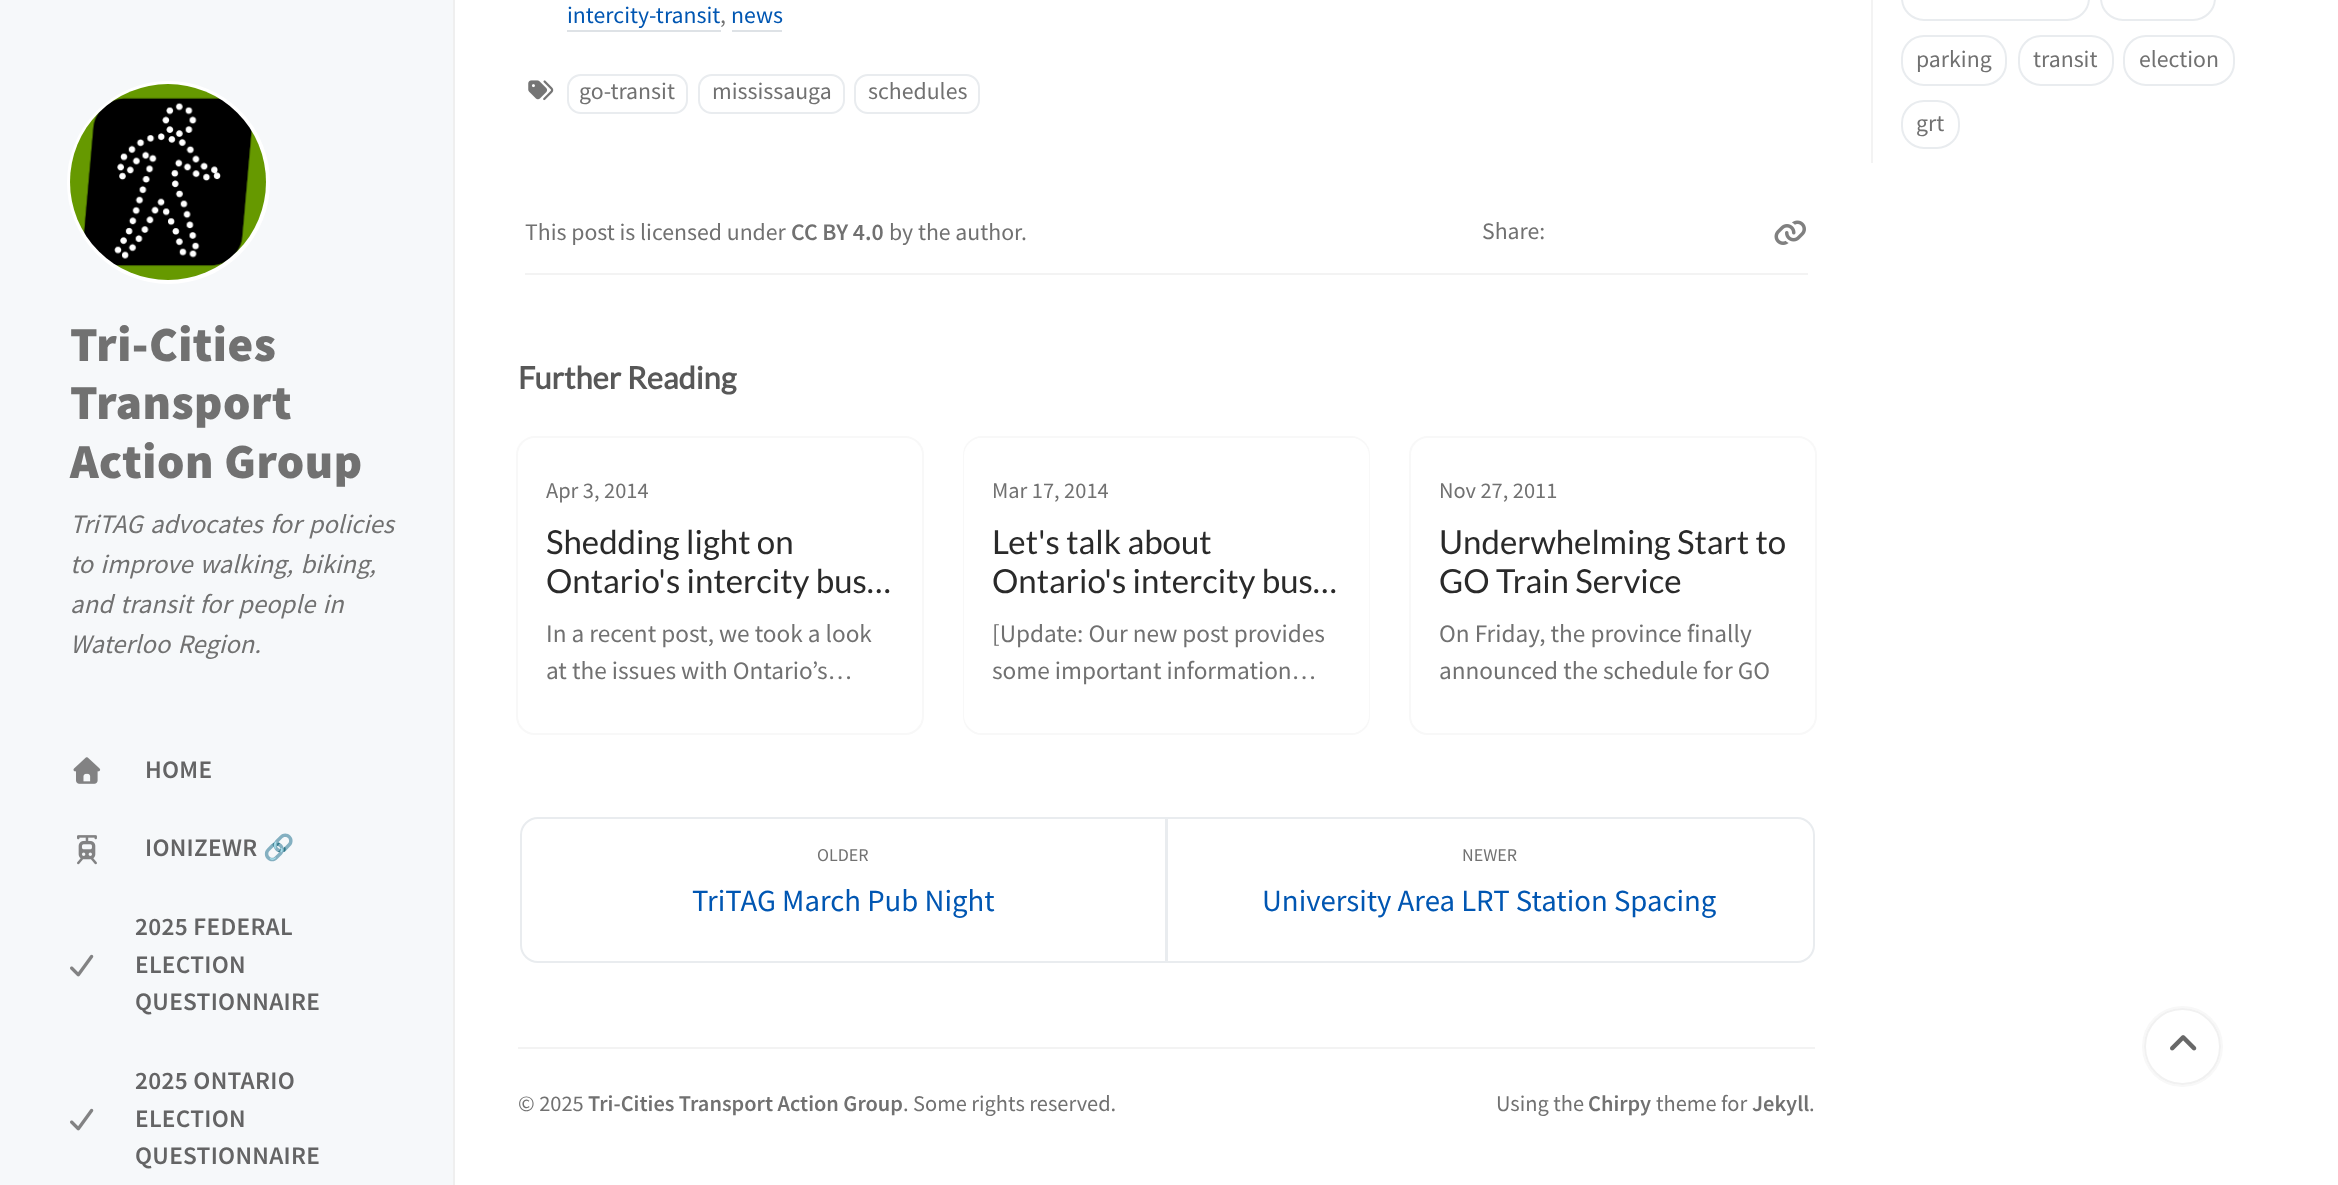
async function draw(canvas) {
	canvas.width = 2338;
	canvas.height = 1185;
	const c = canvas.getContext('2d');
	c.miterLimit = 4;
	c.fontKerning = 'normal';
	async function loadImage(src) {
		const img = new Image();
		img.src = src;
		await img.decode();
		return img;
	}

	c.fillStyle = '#fff';
	c.fillRect(0, 0, 2338, 1185);
	c.fillStyle = '#f6f8fa';
	c.fillRect(0, 0, 453, 1185);
	c.fillStyle = '#efefef';
	c.fillRect(453, 0, 2, 1185);
	c.beginPath();
	c.arc(168.5, 182.5, 99.5, 0, 2 * Math.PI);
	c.strokeStyle = '#fff';
	c.lineWidth = 4;
	c.stroke();
	c.drawImage(await loadImage('img1.png'), 70, 84, 196, 196);
	c.letterSpacing = '0.5px';
	c.font = '900 49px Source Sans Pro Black';
	c.fillStyle = '#717171';
	for (const [text, x, y] of [
		['Tri-Cities', 70, 361],
		['Transport', 70, 419],
		['Action Group', 70, 478],
	]) {
		c.fillText(text, x, y);
	}
	c.letterSpacing = '0px';
	c.wordSpacing = '2px';
	c.font = 'italic 26.6px Source Sans Pro';
	for (const [text, x, y] of [
		['TriTAG advocates for policies', 70, 533],
		['to improve walking, biking,', 70, 573],
		['and transit for people in', 70, 613],
		['Waterloo Region.', 70, 653],
	]) {
		c.fillText(text, x, y);
	}
	c.drawImage(await loadImage('img2.png'), 73, 757, 28, 27);
	c.letterSpacing = '0.3px';
	c.wordSpacing = '0px';
	c.font = '600 25.25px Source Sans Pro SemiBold';
	c.fillStyle = '#646465';
	c.fillText('HOME', 145, 778);
	c.drawImage(await loadImage('img3.png'), 77, 835, 20, 30);
	c.fillText('IONIZEWR', 145, 856);
	c.font = 'bold 25.25px Noto Color Emoji';
	c.fillText('🔗', 263, 856);
	c.drawImage(await loadImage('img4.png'), 70, 954, 24, 23);
	c.font = '600 25.25px Source Sans Pro SemiBold';
	for (const [text, x, y] of [
		['2025 FEDERAL', 135, 935],
		['ELECTION', 135, 973],
		['QUESTIONNAIRE', 135, 1010],
	]) {
		c.fillText(text, x, y);
	}
	c.drawImage(await loadImage('img4.png'), 70, 1108, 24, 23);
	for (const [text, x, y] of [
		['2025 ONTARIO', 135, 1089],
		['ELECTION', 135, 1127],
		['QUESTIONNAIRE', 135, 1164],
	]) {
		c.fillText(text, x, y);
	}
	c.fillStyle = '#f3f3f3';
	c.fillRect(525, 273, 1283, 2);
	c.letterSpacing = '0px';
	c.font = '23.75px Source Sans Pro';
	c.fillStyle = '#0056b2';
	c.fillText('intercity-transit', 567, 23);
	c.fillStyle = '#dee2e6';
	c.fillRect(567, 30, 154, 2);
	c.fillStyle = '#717171';
	c.fillText(',', 720, 23);
	c.fillStyle = '#0056b2';
	c.fillText('news', 731, 23);
	c.fillStyle = '#dee2e6';
	c.fillRect(732, 30, 50, 2);
	c.drawImage(await loadImage('img5.png'), 528, 80, 26, 21);
	c.beginPath();
	c.roundRect(568, 75, 119, 38, 13);
	c.strokeStyle = '#e9ecef';
	c.lineWidth = 2;
	c.stroke();
	c.fillStyle = '#717171';
	c.fillText('go-transit', 579, 99);
	c.beginPath();
	c.roundRect(699, 75, 145, 38, 13);
	c.stroke();
	c.fillText('mississauga', 712, 99);
	c.beginPath();
	c.roundRect(855, 75, 124, 38, 13);
	c.stroke();
	c.fillText('schedules', 868, 99);
	c.fillText('This post is licensed under', 525, 240);
	c.font = '600 23.75px Source Sans Pro SemiBold';
	c.fillText('CC BY 4.0', 791, 240);
	c.font = '23.75px Source Sans Pro';
	c.fillText('by the author.', 889, 240);
	c.fillText('Share:', 1482, 239);
	c.drawImage(await loadImage('img6.png'), 1774, 220, 32, 25);
	c.fillStyle = '#f3f3f3';
	c.fillRect(1871, 0, 2, 163);
	c.beginPath();
	c.roundRect(1902, -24, 187, 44, 22);
	c.stroke();
	c.beginPath();
	c.roundRect(2101, -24, 114, 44, 22);
	c.stroke();
	c.beginPath();
	c.roundRect(1902, 36, 104, 49, 22);
	c.stroke();
	c.fillStyle = '#717171';
	c.fillText('parking', 1916, 67);
	c.beginPath();
	c.roundRect(2019, 36, 94, 49, 22);
	c.stroke();
	c.fillText('transit', 2033, 67);
	c.beginPath();
	c.roundRect(2124, 36, 110, 49, 22);
	c.stroke();
	c.fillText('election', 2139, 67);
	c.beginPath();
	c.roundRect(1902, 101, 57, 47, 22);
	c.stroke();
	c.fillText('grt', 1916, 131);
	c.font = 'bold 30.75px Lato';
	c.fillStyle = '#585858';
	c.fillText('Further Reading', 518, 389);
	c.beginPath();
	c.roundRect(517, 437, 406, 297, 18);
	c.strokeStyle = '#f8f8f8';
	c.stroke();
	c.font = '22.4px Source Sans Pro';
	c.fillStyle = '#717171';
	c.fillText('Apr 3, 2014', 546, 498);
	c.font = '33px Lato';
	c.fillStyle = '#2a2a2a';
	c.fillText('Shedding light on', 546, 554);
	c.fillText('Ontario\'s intercity bus…', 546, 593);
	c.font = '25.25px Source Sans Pro';
	c.fillStyle = '#717171';
	c.fillText('In a recent post, we took a look', 546, 642);
	c.fillText('at the issues with Ontario’s…', 546, 679);
	c.beginPath();
	c.roundRect(964, 437, 405, 297, 18);
	c.stroke();
	c.fillStyle = '#fff';
	c.beginPath();
	c.roundRect(964, 438, 405, 295, 18);
	c.fill();
	c.font = '22.4px Source Sans Pro';
	c.fillStyle = '#717171';
	c.fillText('Mar 17, 2014', 992, 498);
	c.font = '33px Lato';
	c.fillStyle = '#2a2a2a';
	c.fillText('Let\'s talk about', 992, 554);
	c.fillText('Ontario\'s intercity bus…', 992, 593);
	c.font = '25.25px Source Sans Pro';
	c.fillStyle = '#717171';
	c.fillText('[Update: Our new post provides', 992, 642);
	c.fillText('some important information…', 992, 679);
	c.beginPath();
	c.roundRect(1410, 437, 406, 297, 18);
	c.stroke();
	c.font = '22.4px Source Sans Pro';
	c.fillText('Nov 27, 2011', 1439, 498);
	c.font = '33px Lato';
	c.fillStyle = '#2a2a2a';
	c.fillText('Underwhelming Start to', 1439, 554);
	c.fillText('GO Train Service', 1439, 593);
	c.font = '25.25px Source Sans Pro';
	c.fillStyle = '#717171';
	c.fillText('On Friday, the province finally', 1439, 642);
	c.fillText('announced the schedule for GO', 1439, 679);
	c.beginPath();
	c.roundRect(521, 818, 645, 144, [17, 0, 0, 17]);
	c.strokeStyle = '#e9ecef';
	c.stroke();
	c.font = '18px Source Sans Pro';
	c.fillText('OLDER', 817, 861);
	c.font = '30.75px Source Sans Pro';
	c.fillStyle = '#0056b2';
	c.fillText('TriTAG March Pub Night', 692, 911);
	c.beginPath();
	c.roundRect(1167, 818, 647, 144, [0, 17, 17, 0]);
	c.stroke();
	c.font = '18px Source Sans Pro';
	c.fillStyle = '#717171';
	c.fillText('NEWER', 1462, 861);
	c.font = '30.75px Source Sans Pro';
	c.fillStyle = '#0056b2';
	c.fillText('University Area LRT Station Spacing', 1262, 911);
	c.fillStyle = '#f3f3f3';
	c.fillRect(518, 1047, 1297, 2);
	c.font = '22.4px Source Sans Pro';
	c.fillStyle = '#717171';
	c.fillText('© 2025', 518, 1111);
	c.font = '600 22.4px Source Sans Pro SemiBold';
	c.fillText('Tri-Cities Transport Action Group', 588, 1111);
	c.font = '22.4px Source Sans Pro';
	c.fillText('. Some rights reserved.', 903, 1111);
	c.fillText('Using the', 1496, 1111);
	c.font = '600 22.4px Source Sans Pro SemiBold';
	c.fillText('Chirpy', 1588, 1111);
	c.font = '22.4px Source Sans Pro';
	c.fillText('theme for', 1656, 1111);
	c.font = '600 22.4px Source Sans Pro SemiBold';
	c.fillText('Jekyll', 1752, 1111);
	c.font = '22.4px Source Sans Pro';
	c.fillText('.', 1809, 1111);
	c.beginPath();
	c.arc(2182.5, 1046.5, 39.5, 0, 2 * Math.PI);
	c.strokeStyle = '#f8f8f8';
	c.stroke();
	c.beginPath();
	c.arc(2182.5, 1046.5, 37.5, 0, 2 * Math.PI);
	c.strokeStyle = '#f1f1f1';
	c.stroke();
	c.drawImage(await loadImage('img7.png'), 2170, 1035, 27, 16);
}

draw(document.querySelector('canvas'));
